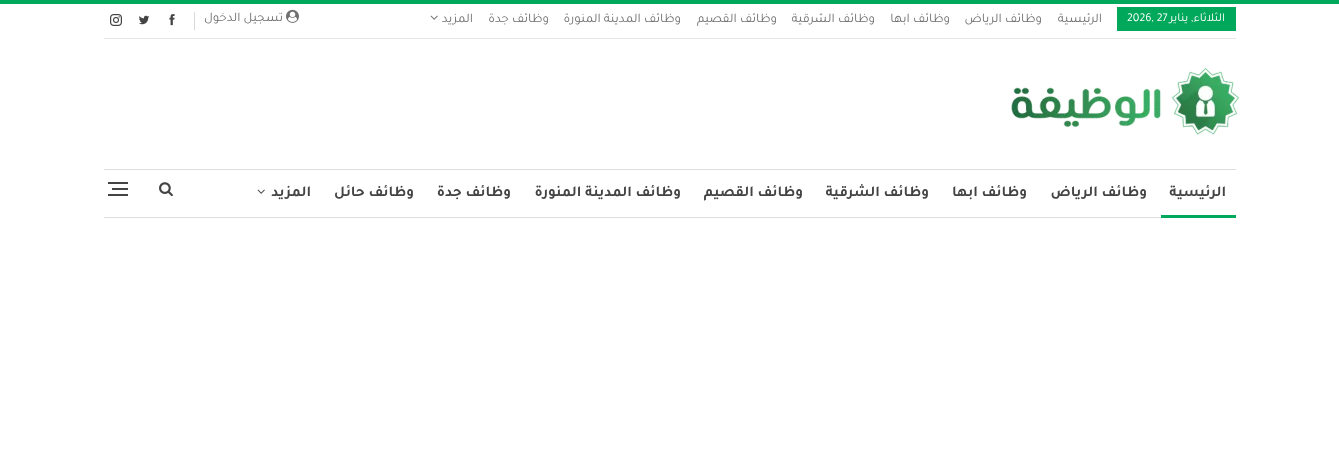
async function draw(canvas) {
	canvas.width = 1339;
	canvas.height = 474;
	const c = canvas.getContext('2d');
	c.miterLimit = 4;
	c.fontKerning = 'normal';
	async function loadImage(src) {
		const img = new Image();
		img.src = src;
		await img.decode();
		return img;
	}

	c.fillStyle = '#fff';
	c.fillRect(0, 0, 1339, 474);
	for (const [x, y, w, h, color] of [
		[0, 0, 1339, 4, '#00a85c'],
		[104, 38, 1132, 1, '#e6e6e6'],
		[1117, 7, 119, 24, '#00a85c'],
	]) {
		c.fillStyle = color;
		c.fillRect(x, y, w, h);
	}
	c.direction = 'rtl';
	c.font = '12px Tajawal';
	c.fillStyle = '#fff';
	c.fillText('الثلاثاء, يناير', 1225, 21);
	c.direction = 'ltr';
	c.fillText('2026, 27', 1127, 21);
	c.direction = 'rtl';
	c.font = '13px Tajawal';
	c.fillStyle = '#707070';
	for (const [text, x, y] of [
		['الرئيسية', 1102, 22],
		['وظائف الرياض', 1042, 22],
		['وظائف ابها', 950, 22],
		['وظائف الشرقية', 875, 22],
		['وظائف القصيم', 777, 22],
		['وظائف المدينة المنورة', 681, 22],
		['وظائف جدة', 549, 22],
		['المزيد', 473, 22],
	]) {
		c.fillText(text, x, y);
	}
	c.drawImage(await loadImage('img1.png'), 430, 15, 8, 5);
	c.drawImage(await loadImage('img2.png'), 286, 9, 13, 14);
	c.fillText('تسجيل الدخول', 283, 21);
	c.fillStyle = '#d9d9d9';
	c.fillRect(194, 12, 1, 18);
	c.drawImage(await loadImage('img3.png'), 169, 14, 6, 12);
	c.drawImage(await loadImage('img4.png'), 139, 15, 11, 10);
	c.drawImage(await loadImage('img5.png'), 110, 14, 12, 12);
	c.drawImage(await loadImage('img6.png'), 1011, 67, 229, 68);
	c.fillStyle = '#dedede';
	c.fillRect(104, 169, 1132, 1);
	c.fillRect(104, 217, 1057, 1);
	c.font = 'bold 15px Tajawal';
	c.fillStyle = '#444';
	c.fillText('الرئيسية', 1226, 196);
	c.fillStyle = '#00a85c';
	c.fillRect(1161, 215, 75, 3);
	c.fillStyle = '#444';
	for (const [text, x, y] of [
		['وظائف الرياض', 1147, 196],
		['وظائف ابها', 1027, 196],
		['وظائف الشرقية', 929, 196],
		['وظائف القصيم', 803, 196],
		['وظائف المدينة المنورة', 681, 196],
		['وظائف جدة', 511, 196],
		['وظائف حائل', 414, 196],
		['المزيد', 311, 196],
	]) {
		c.fillText(text, x, y);
	}
	c.drawImage(await loadImage('img7.png'), 257, 189, 8, 5);
	c.drawImage(await loadImage('img8.png'), 159, 182, 14, 15);
	for (const [x, y, w, h, color] of [
		[112, 188, 16, 2, '#444'],
		[108, 182, 20, 2, '#444'],
		[108, 194, 20, 2, '#444'],
	]) {
		c.fillStyle = color;
		c.fillRect(x, y, w, h);
	}
}

draw(document.querySelector('canvas'));
